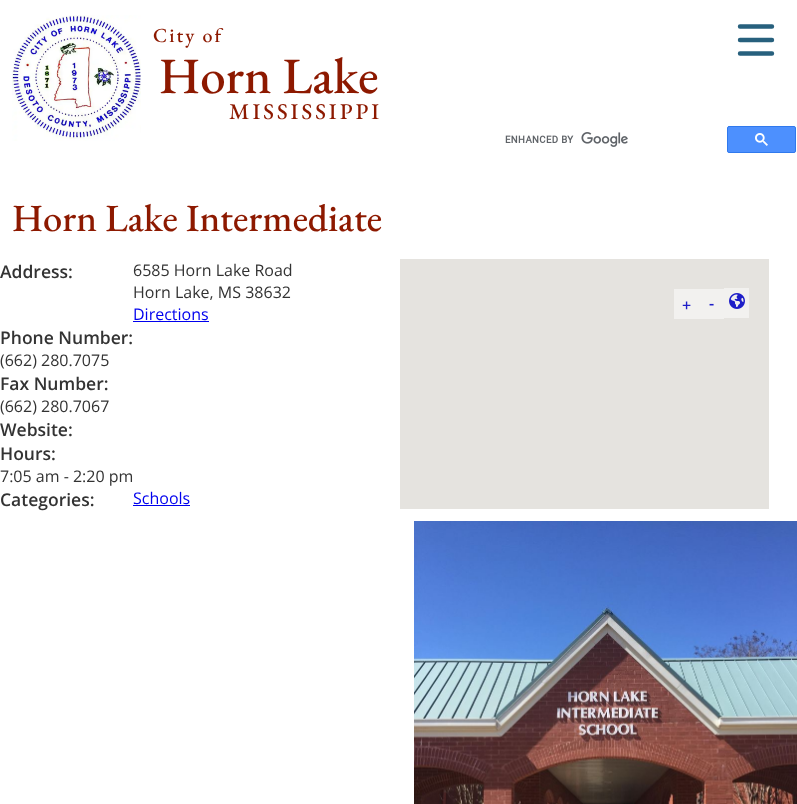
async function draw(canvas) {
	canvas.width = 797;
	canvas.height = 804;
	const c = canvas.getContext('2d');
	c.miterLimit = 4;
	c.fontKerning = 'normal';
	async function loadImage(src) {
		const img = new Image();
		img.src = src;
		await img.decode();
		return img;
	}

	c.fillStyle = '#fff';
	c.fillRect(0, 0, 797, 804);
	c.drawImage(await loadImage('img1.png'), 12, 15, 129, 126);
	c.letterSpacing = '2px';
	c.font = '500 20px EB Garamond';
	c.fillStyle = '#8d1900';
	c.fillText('City of', 153, 42);
	c.letterSpacing = '0px';
	c.font = '500 51px EB Garamond';
	c.fillText('Horn Lake', 159, 93);
	c.letterSpacing = '3px';
	c.font = '500 22.5px EB Garamond';
	c.fillText('MISSISSIPPI', 229, 119);
	c.beginPath();
	c.moveTo(740, 26.5);
	c.lineTo(772, 26.5);
	c.moveTo(740, 40);
	c.lineTo(772, 40);
	c.moveTo(772, 53.5);
	c.lineTo(740, 53.5);
	c.strokeStyle = '#27607d';
	c.lineWidth = 4.4;
	c.lineCap = 'round';
	c.stroke();
	c.drawImage(await loadImage('img2.png'), 505, 132, 123, 15);
	c.fillStyle = '#4d90fe';
	c.beginPath();
	c.roundRect(727.5, 126.5, 68, 26, 1.5);
	c.fill();
	c.strokeStyle = '#3079ed';
	c.lineWidth = 1;
	c.stroke();
	c.drawImage(await loadImage('img3.png'), 755, 133, 13, 13);
	c.letterSpacing = '0px';
	c.font = '500 38.5px EB Garamond';
	c.fillStyle = '#8d1900';
	c.fillText('Horn Lake Intermediate', 12, 231);
	c.font = '600 17.5px Open Sans';
	c.fillStyle = '#333';
	c.fillText('Address:', 0, 278);
	c.font = '16px Open Sans';
	c.fillText('6585 Horn Lake Road', 133, 276);
	c.fillText('Horn Lake, MS 38632', 133, 298);
	c.fillStyle = '#00e';
	c.fillText('Directions', 133, 320);
	c.fillRect(133, 321, 76, 1);
	c.font = '600 17.5px Open Sans';
	c.fillStyle = '#333';
	c.fillText('Phone Number:', 0, 344);
	c.font = '16px Open Sans';
	c.fillText('(662) 280.7075', 0, 366);
	c.font = '600 17.5px Open Sans';
	c.fillText('Fax Number:', 0, 390);
	c.font = '16px Open Sans';
	c.fillText('(662) 280.7067', 0, 412);
	c.font = '600 17.5px Open Sans';
	c.fillText('Website:', 0, 436);
	c.fillText('Hours:', 0, 460);
	c.font = '16px Open Sans';
	c.fillText('7:05 am - 2:20 pm', 0, 482);
	c.font = '600 17.5px Open Sans';
	c.fillText('Categories:', 0, 506);
	c.font = '16px Open Sans';
	c.fillStyle = '#00e';
	c.fillText('Schools', 133, 504);
	for (const [x, y, w, h, color] of [
		[133, 505, 57, 1, '#00e'],
		[400, 259, 369, 250, '#e5e3df'],
		[674, 289, 50, 30, '#f2f1ef'],
	]) {
		c.fillStyle = color;
		c.fillRect(x, y, w, h);
	}
	c.font = '600 16px Open Sans';
	c.fillStyle = '#1e1ec8';
	c.fillText('+', 682, 311);
	c.fillText('-', 709, 309);
	c.fillStyle = '#f2f1ef';
	c.fillRect(724, 288, 25, 30);
	c.drawImage(await loadImage('img4.png'), 729, 293, 16, 16);
	c.drawImage(await loadImage('img5.png'), 414, 521, 383, 283);
}

draw(document.querySelector('canvas'));
